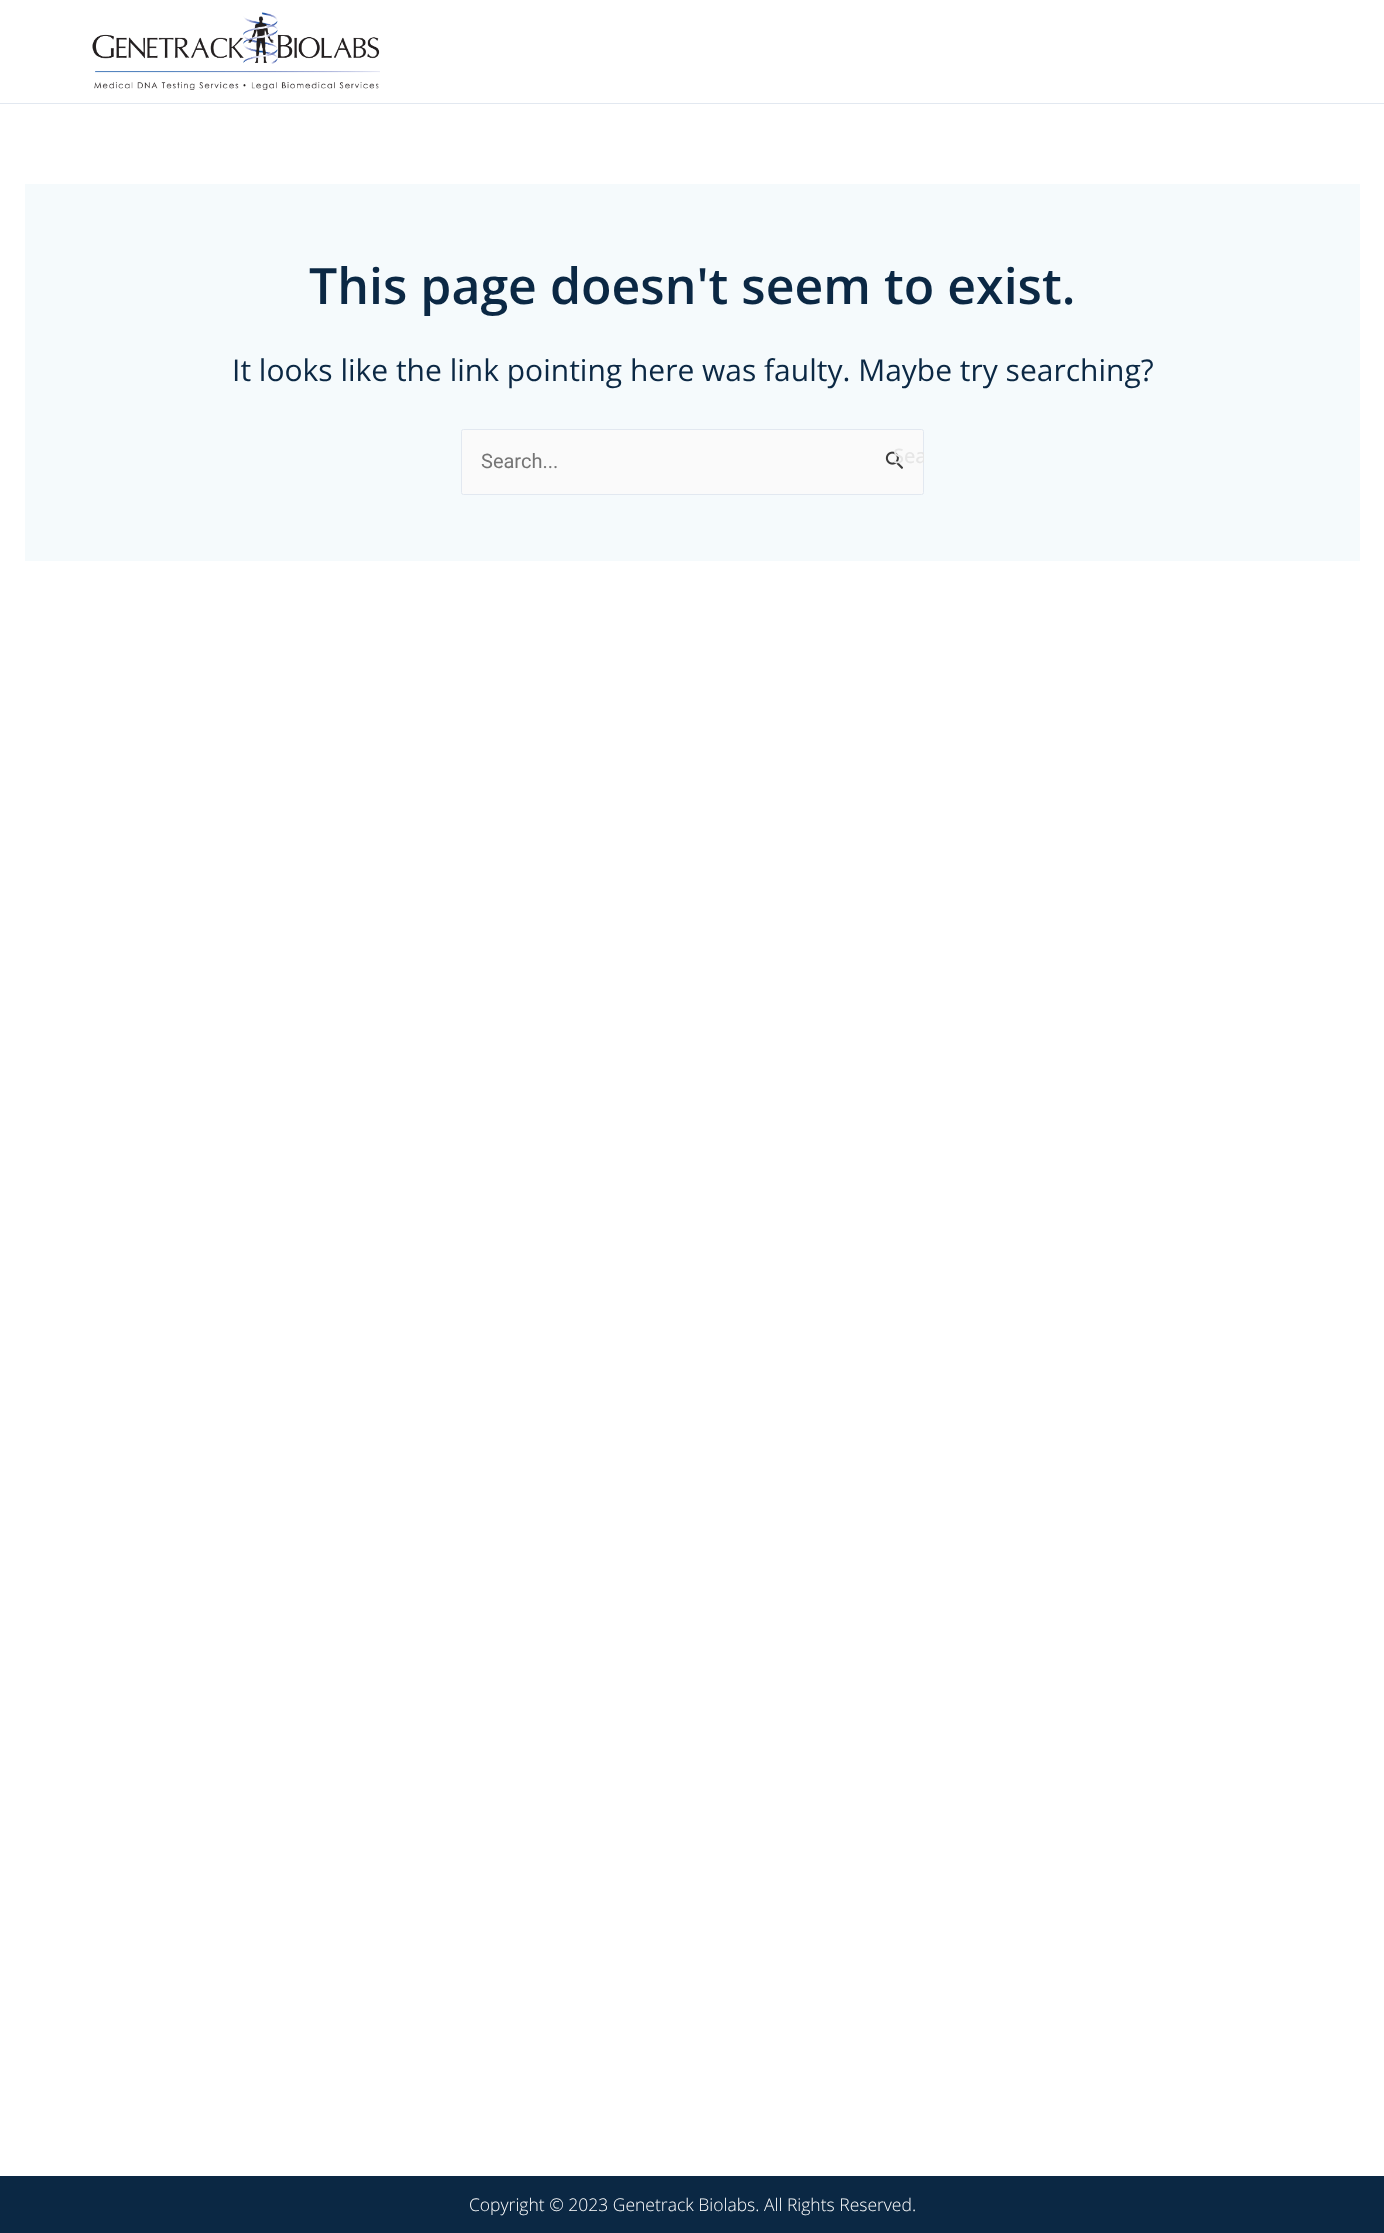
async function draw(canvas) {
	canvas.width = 1384;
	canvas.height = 2233;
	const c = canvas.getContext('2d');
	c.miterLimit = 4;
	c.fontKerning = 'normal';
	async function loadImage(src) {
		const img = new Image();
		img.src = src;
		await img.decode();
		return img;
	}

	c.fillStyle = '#fff';
	c.fillRect(0, 0, 1384, 2233);
	c.fillStyle = '#e2e8f0';
	c.fillRect(0, 103, 1384, 1);
	c.drawImage(await loadImage('img1.png'), 92, 12, 288, 78);
	c.fillStyle = '#f5fafc';
	c.fillRect(25, 184, 1335, 377);
	c.font = '600 50px Open Sans';
	c.fillStyle = '#0b2844';
	c.fillText('This page doesn\'t seem to exist.', 309, 304);
	c.font = '30px Open Sans';
	c.fillText('It looks like the link pointing here was faulty. Maybe try searching?', 232, 381);
	c.fillStyle = '#fafafa';
	c.beginPath();
	c.roundRect(461.5, 429.5, 462, 65, 2);
	c.fill();
	c.strokeStyle = '#e2e8f0';
	c.stroke();
	c.font = '20px Roboto';
	c.fillStyle = '#757575';
	c.fillText('Search...', 481, 468);
	c.drawImage(await loadImage('img2.png'), 885, 451, 18, 18);
	c.save();
	c.beginPath();
	c.roundRect(868, 429, 56, 52, 2.5);
	c.clip();
	c.font = '500 20px Open Sans';
	c.fillStyle = '#e6e6e6';
	c.fillText('Sea', 893, 463);
	c.restore();
	c.fillStyle = '#0b2844';
	c.fillRect(0, 2176, 1384, 57);
	c.font = '300 17.5px Open Sans';
	c.fillStyle = '#fff';
	c.fillText('Copyright © 2023 Genetrack Biolabs. All Rights Reserved.', 469, 2211);
}

draw(document.querySelector('canvas'));
